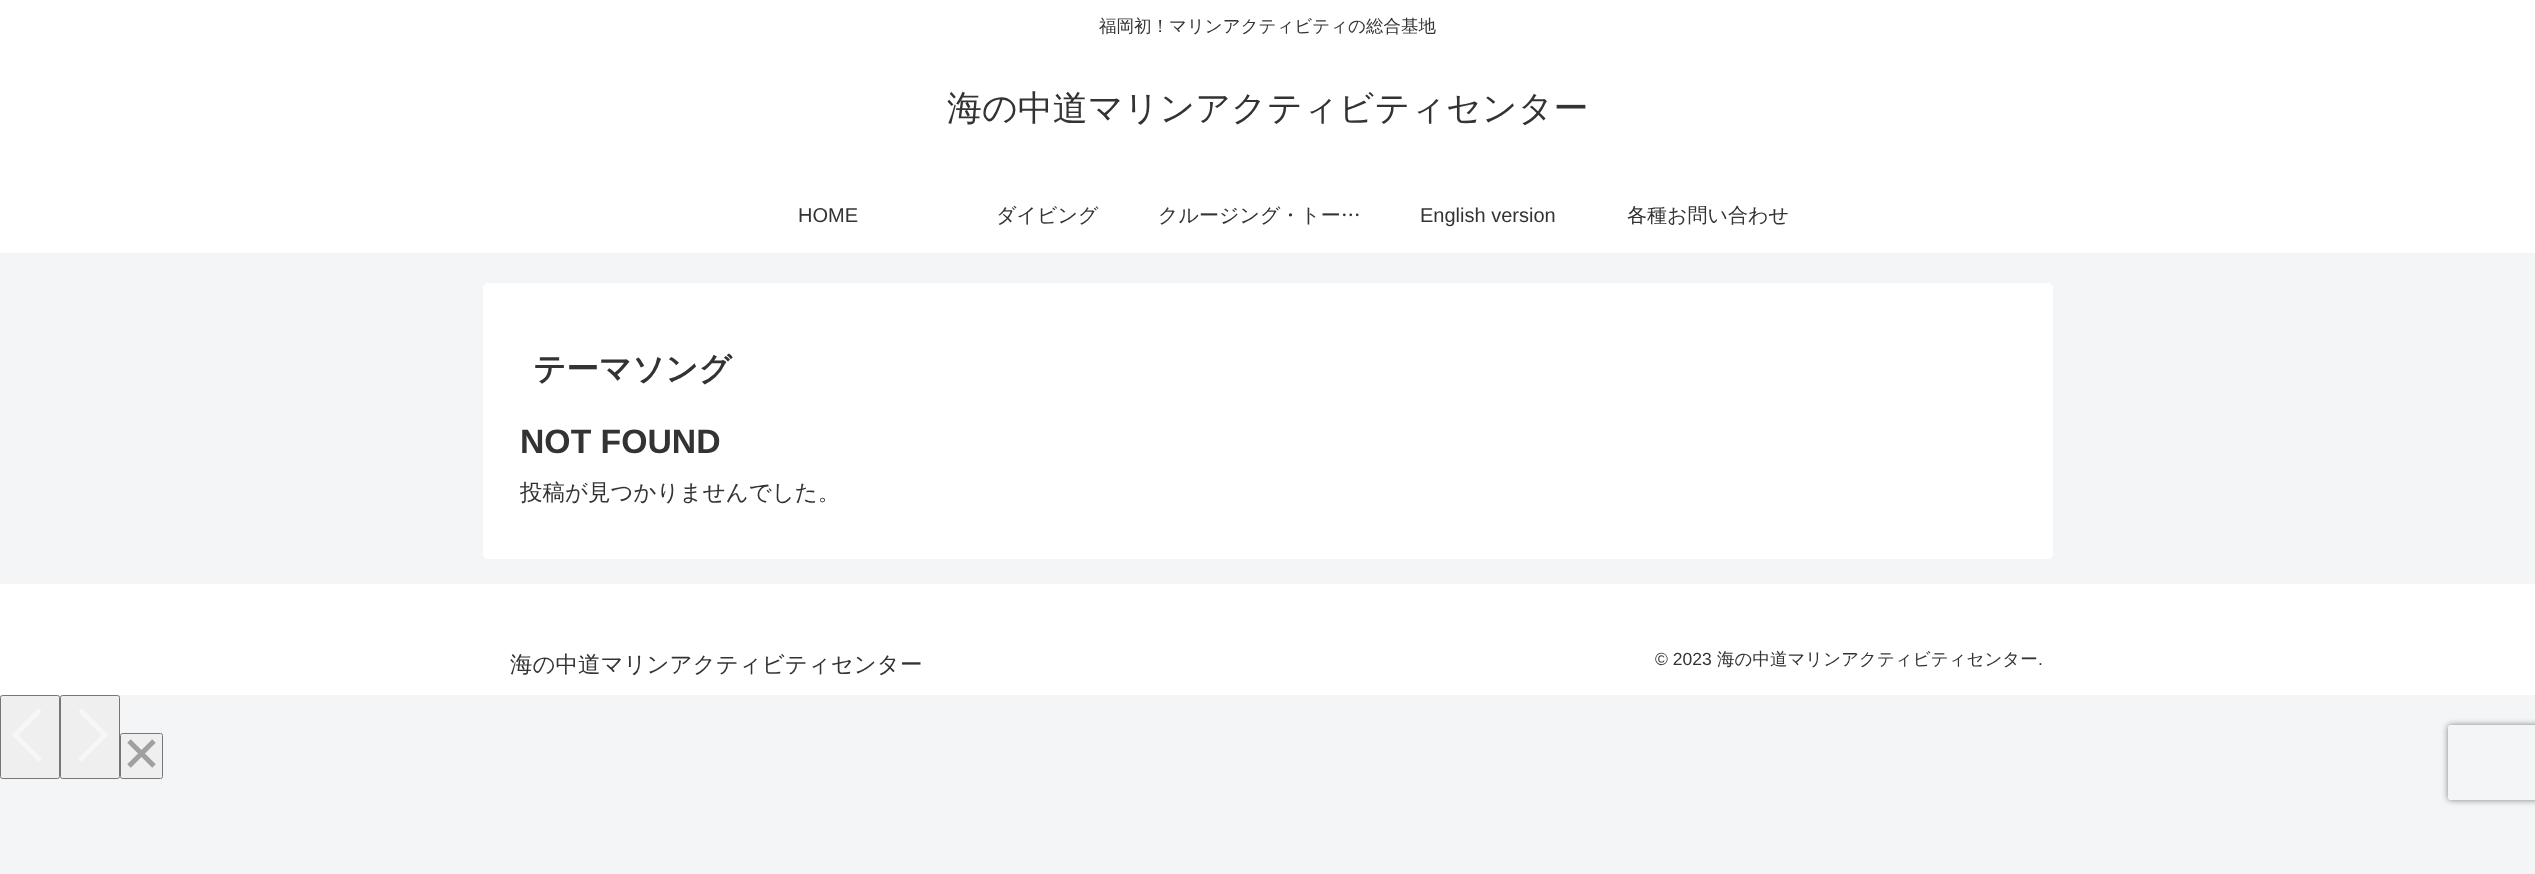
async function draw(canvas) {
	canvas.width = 2535;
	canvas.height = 874;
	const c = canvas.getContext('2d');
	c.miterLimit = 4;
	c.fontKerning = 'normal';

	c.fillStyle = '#f4f5f7';
	c.fillRect(0, 0, 2535, 874);
	c.fillStyle = '#fff';
	c.fillRect(0, 0, 2535, 253);
	c.font = '500 17.5px WenQuanYi Zen Hei';
	c.fillStyle = '#333';
	c.fillText('福岡初！マリンアクティビティの総合基地', 1099, 32);
	c.font = '500 35px WenQuanYi Zen Hei';
	c.fillText('海の中道マリンアクティビティセンター', 947, 120);
	c.font = '20px Liberation Sans';
	c.fillText('HOME', 798, 222);
	c.font = '500 20px WenQuanYi Zen Hei';
	c.fillText('ダイビング', 996, 222);
	c.fillText('クルージング・トー…', 1158, 222);
	c.font = '20px Liberation Sans';
	c.fillText('English version', 1420, 222);
	c.font = '500 20px WenQuanYi Zen Hei';
	c.fillText('各種お問い合わせ', 1627, 222);
	c.fillStyle = '#fff';
	c.beginPath();
	c.roundRect(483, 283, 1570, 276, 5);
	c.fill();
	c.font = 'bold 32.5px WenQuanYi Zen Hei';
	c.fillStyle = '#333';
	c.fillText('テーマソング', 533, 380);
	c.font = 'bold 33.75px Liberation Sans';
	c.fillText('NOT FOUND', 520, 453);
	c.font = '500 22.5px WenQuanYi Zen Hei';
	c.fillText('投稿が見つかりませんでした。', 520, 500);
	c.fillStyle = '#fff';
	c.fillRect(0, 584, 2535, 111);
	c.fillStyle = '#333';
	c.fillText('海の中道マリンアクティビティセンター', 510, 672);
	c.font = '17.5px Liberation Sans';
	c.fillText('© 2023', 1655, 665);
	c.font = '500 17.5px WenQuanYi Zen Hei';
	c.fillText('海の中道マリンアクティビティセンター', 1717, 665);
	c.font = '17.5px Liberation Sans';
	c.fillText('.', 2038, 665);
	c.fillStyle = '#efefef';
	c.beginPath();
	c.roundRect(0.5, 695.5, 59, 83, 2);
	c.fill();
	c.strokeStyle = '#767676';
	c.stroke();
	c.beginPath();
	c.moveTo(40, 710);
	c.lineTo(15, 735);
	c.lineTo(40, 760);
	c.strokeStyle = '#f7f7f7';
	c.lineWidth = 5;
	c.lineJoin = 'round';
	c.stroke();
	c.beginPath();
	c.roundRect(60.5, 695.5, 59, 83, 2);
	c.fill();
	c.strokeStyle = '#767676';
	c.lineWidth = 1;
	c.lineJoin = 'miter';
	c.stroke();
	c.beginPath();
	c.moveTo(80, 710);
	c.lineTo(105, 735);
	c.lineTo(80, 760);
	c.strokeStyle = '#f7f7f7';
	c.lineWidth = 5;
	c.lineJoin = 'round';
	c.stroke();
	c.beginPath();
	c.roundRect(120.5, 733.5, 42, 45, 2);
	c.fill();
	c.strokeStyle = '#767676';
	c.lineWidth = 1;
	c.lineJoin = 'miter';
	c.stroke();
	c.beginPath();
	c.moveTo(129, 741);
	c.lineTo(154, 766);
	c.moveTo(129, 766);
	c.lineTo(154, 741);
	c.strokeStyle = '#a0a0a0';
	c.lineWidth = 5;
	c.stroke();
	c.save();
	c.beginPath();
	c.moveTo(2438, 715);
	c.lineTo(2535, 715);
	c.lineTo(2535, 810);
	c.lineTo(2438, 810);
	c.closePath();
	c.moveTo(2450.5, 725);
	c.lineTo(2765.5, 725);
	c.bezierCurveTo(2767, 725, 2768, 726, 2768, 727.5);
	c.lineTo(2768, 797.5);
	c.bezierCurveTo(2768, 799, 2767, 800, 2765.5, 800);
	c.lineTo(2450.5, 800);
	c.bezierCurveTo(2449, 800, 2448, 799, 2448, 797.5);
	c.lineTo(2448, 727.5);
	c.bezierCurveTo(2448, 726, 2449, 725, 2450.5, 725);
	c.closePath();
	c.clip('evenodd');
	c.fillStyle = '#808080';
	c.filter = 'blur(3px)';
	c.beginPath();
	c.roundRect(2448, 725, 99, 75, 2.5);
	c.fill();
	c.filter = 'none';
	c.restore();
}

draw(document.querySelector('canvas'));
